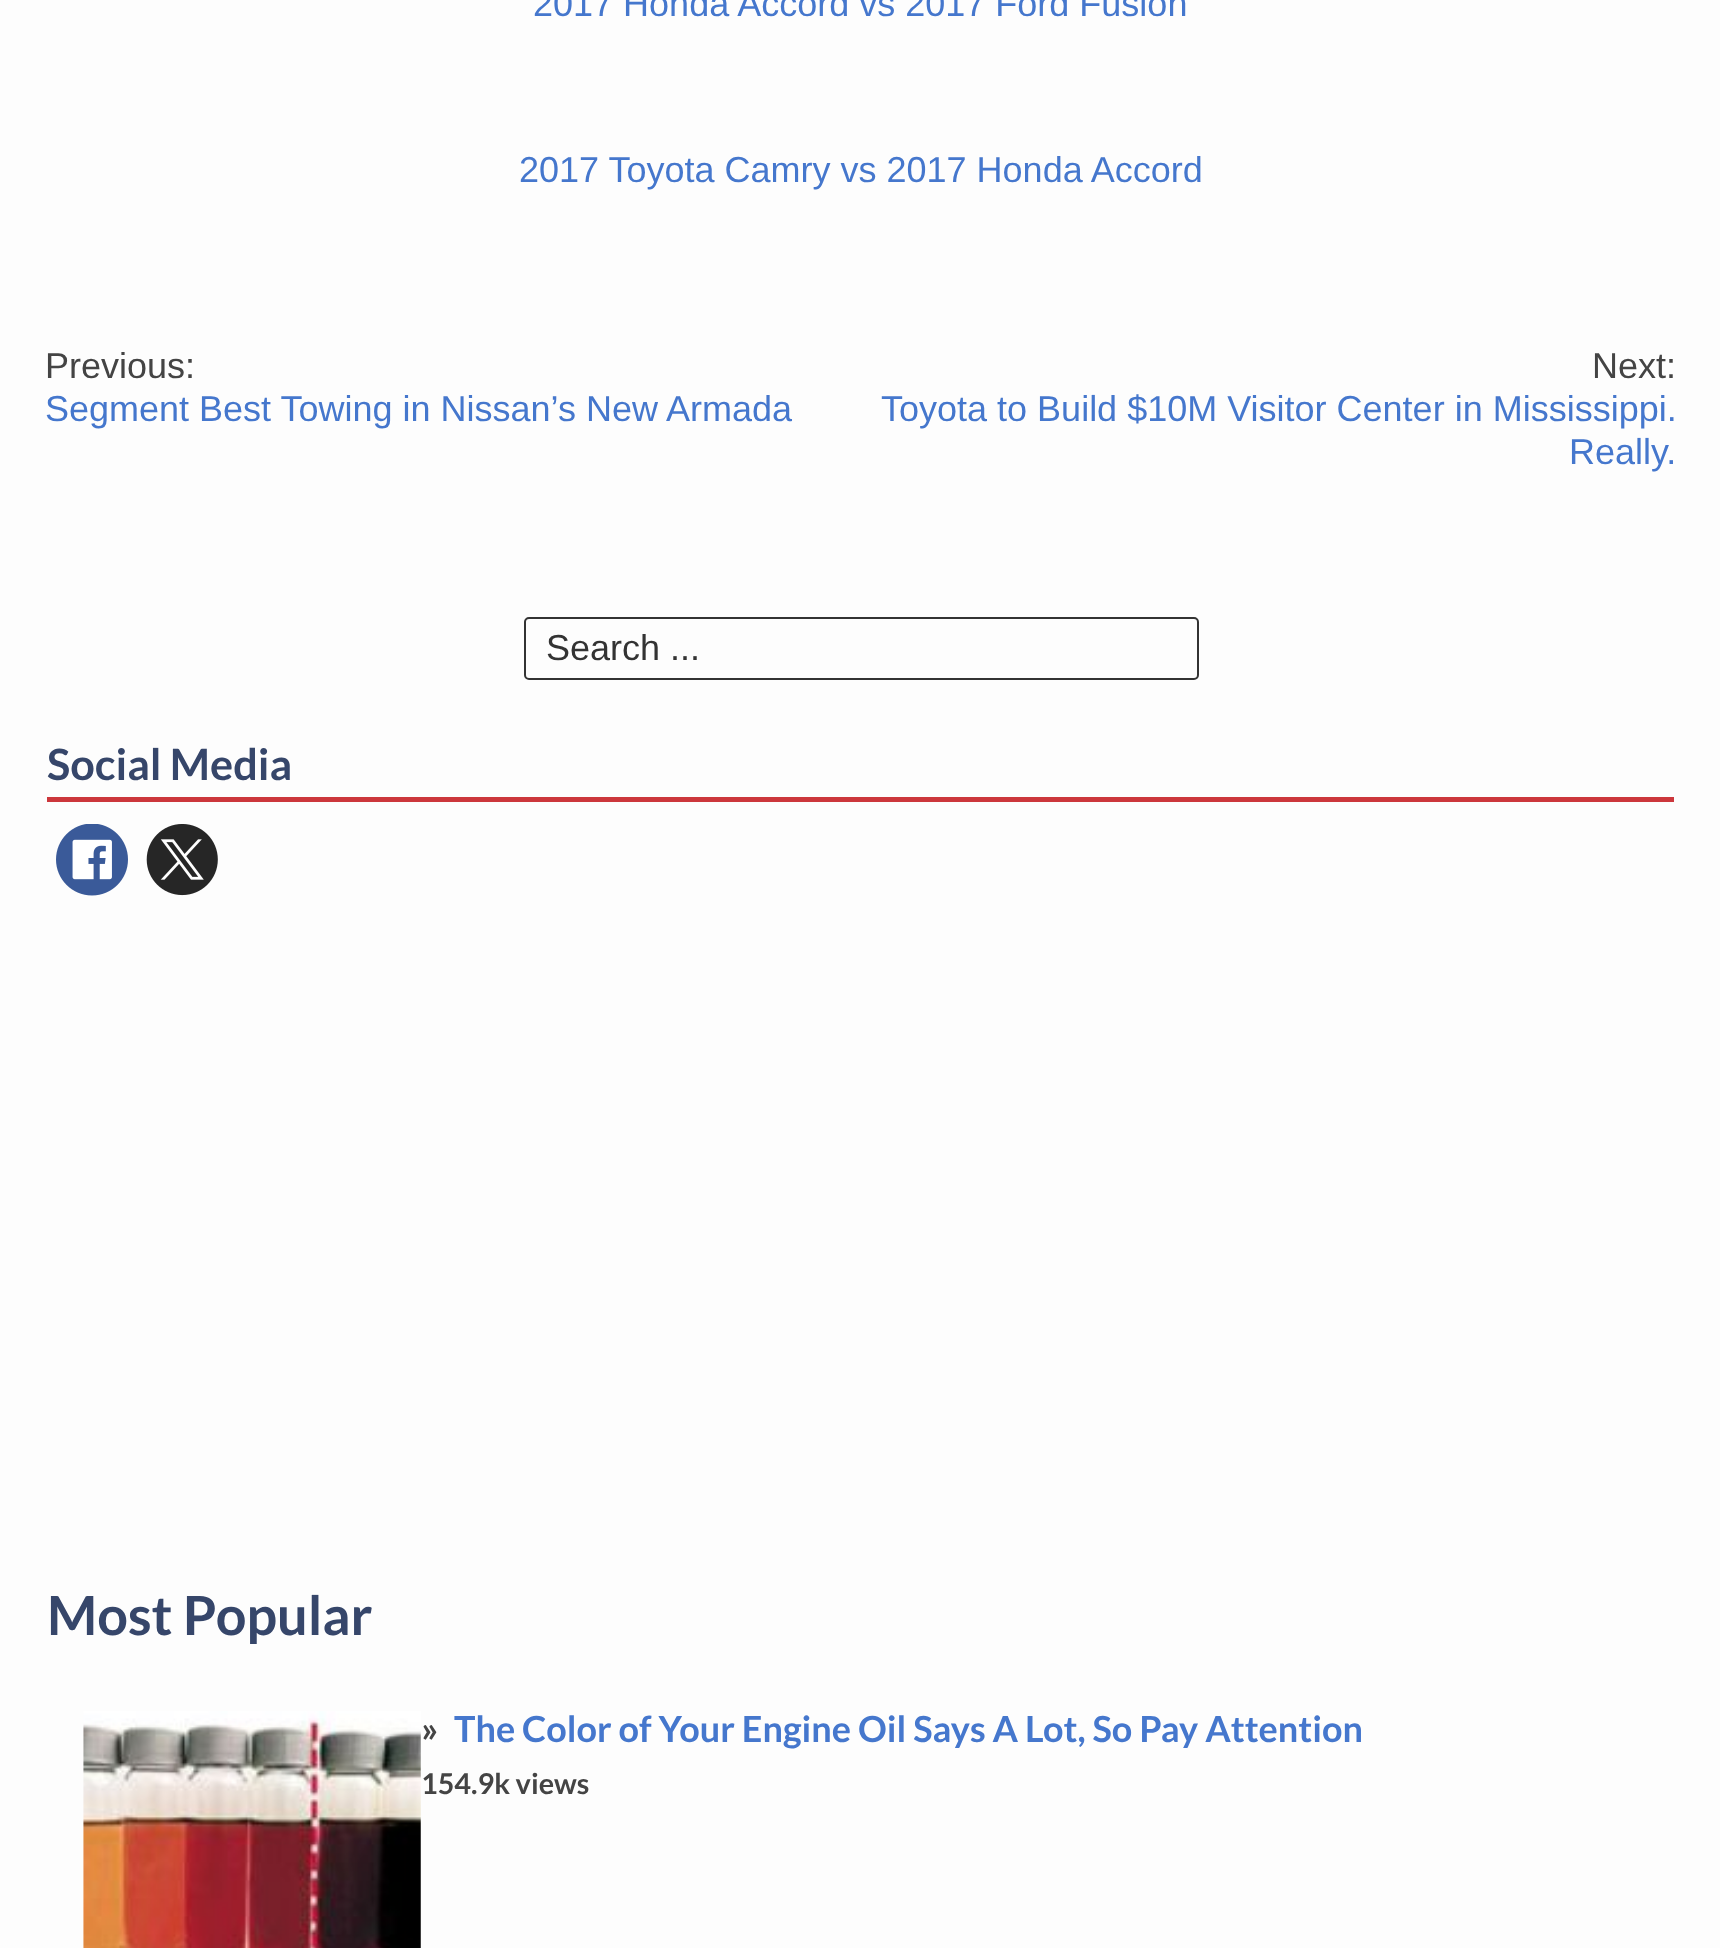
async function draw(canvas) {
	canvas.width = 1720;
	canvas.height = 1948;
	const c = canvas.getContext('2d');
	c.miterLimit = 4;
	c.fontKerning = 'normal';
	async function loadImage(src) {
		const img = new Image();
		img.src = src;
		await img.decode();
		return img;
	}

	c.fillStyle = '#fdfdfd';
	c.fillRect(0, 0, 1720, 1948);
	c.font = '36px Liberation Sans';
	c.fillStyle = '#4577cd';
	c.fillText('2017 Honda Accord vs 2017 Ford Fusion', 533, 16);
	c.fillText('2017 Toyota Camry vs 2017 Honda Accord', 519, 182);
	c.fillStyle = '#444';
	c.fillText('Previous:', 45, 378);
	c.fillStyle = '#4577cd';
	c.fillText('Segment Best Towing in Nissan’s New Armada', 45, 421);
	c.fillStyle = '#444';
	c.fillText('Next:', 1592, 378);
	c.fillStyle = '#4577cd';
	c.fillText('Toyota to Build $10M Visitor Center in Mississippi.', 881, 421);
	c.fillText('Really.', 1569, 464);
	c.beginPath();
	c.roundRect(525, 618, 673, 61, 4);
	c.strokeStyle = '#333';
	c.lineWidth = 2;
	c.stroke();
	c.fillStyle = '#333';
	c.fillText('Search ...', 546, 660);
	c.fillStyle = '#cc373c';
	c.fillRect(47, 797, 1627, 5);
	c.font = 'bold 43.25px Lato';
	c.fillStyle = '#36466a';
	c.fillText('Social Media', 47, 780);
	c.drawImage(await loadImage('img1.png'), 56, 824, 72, 72);
	c.drawImage(await loadImage('img2.png'), 146, 824, 72, 72);
	c.font = 'bold 54px Lato';
	c.fillText('Most Popular', 47, 1635);
	c.drawImage(await loadImage('img3.png'), 83, 1711, 338, 237);
	c.font = 'bold 36px "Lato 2"';
	c.fillStyle = '#444';
	c.fillText('»', 421, 1742);
	c.fillStyle = '#4577cd';
	c.fillText('The Color of Your Engine Oil Says A Lot, So Pay Attention', 454, 1742);
	c.font = 'bold 28.75px "Lato 2"';
	c.fillStyle = '#444';
	c.fillText('154.9k views', 421, 1794);
}

draw(document.querySelector('canvas'));
